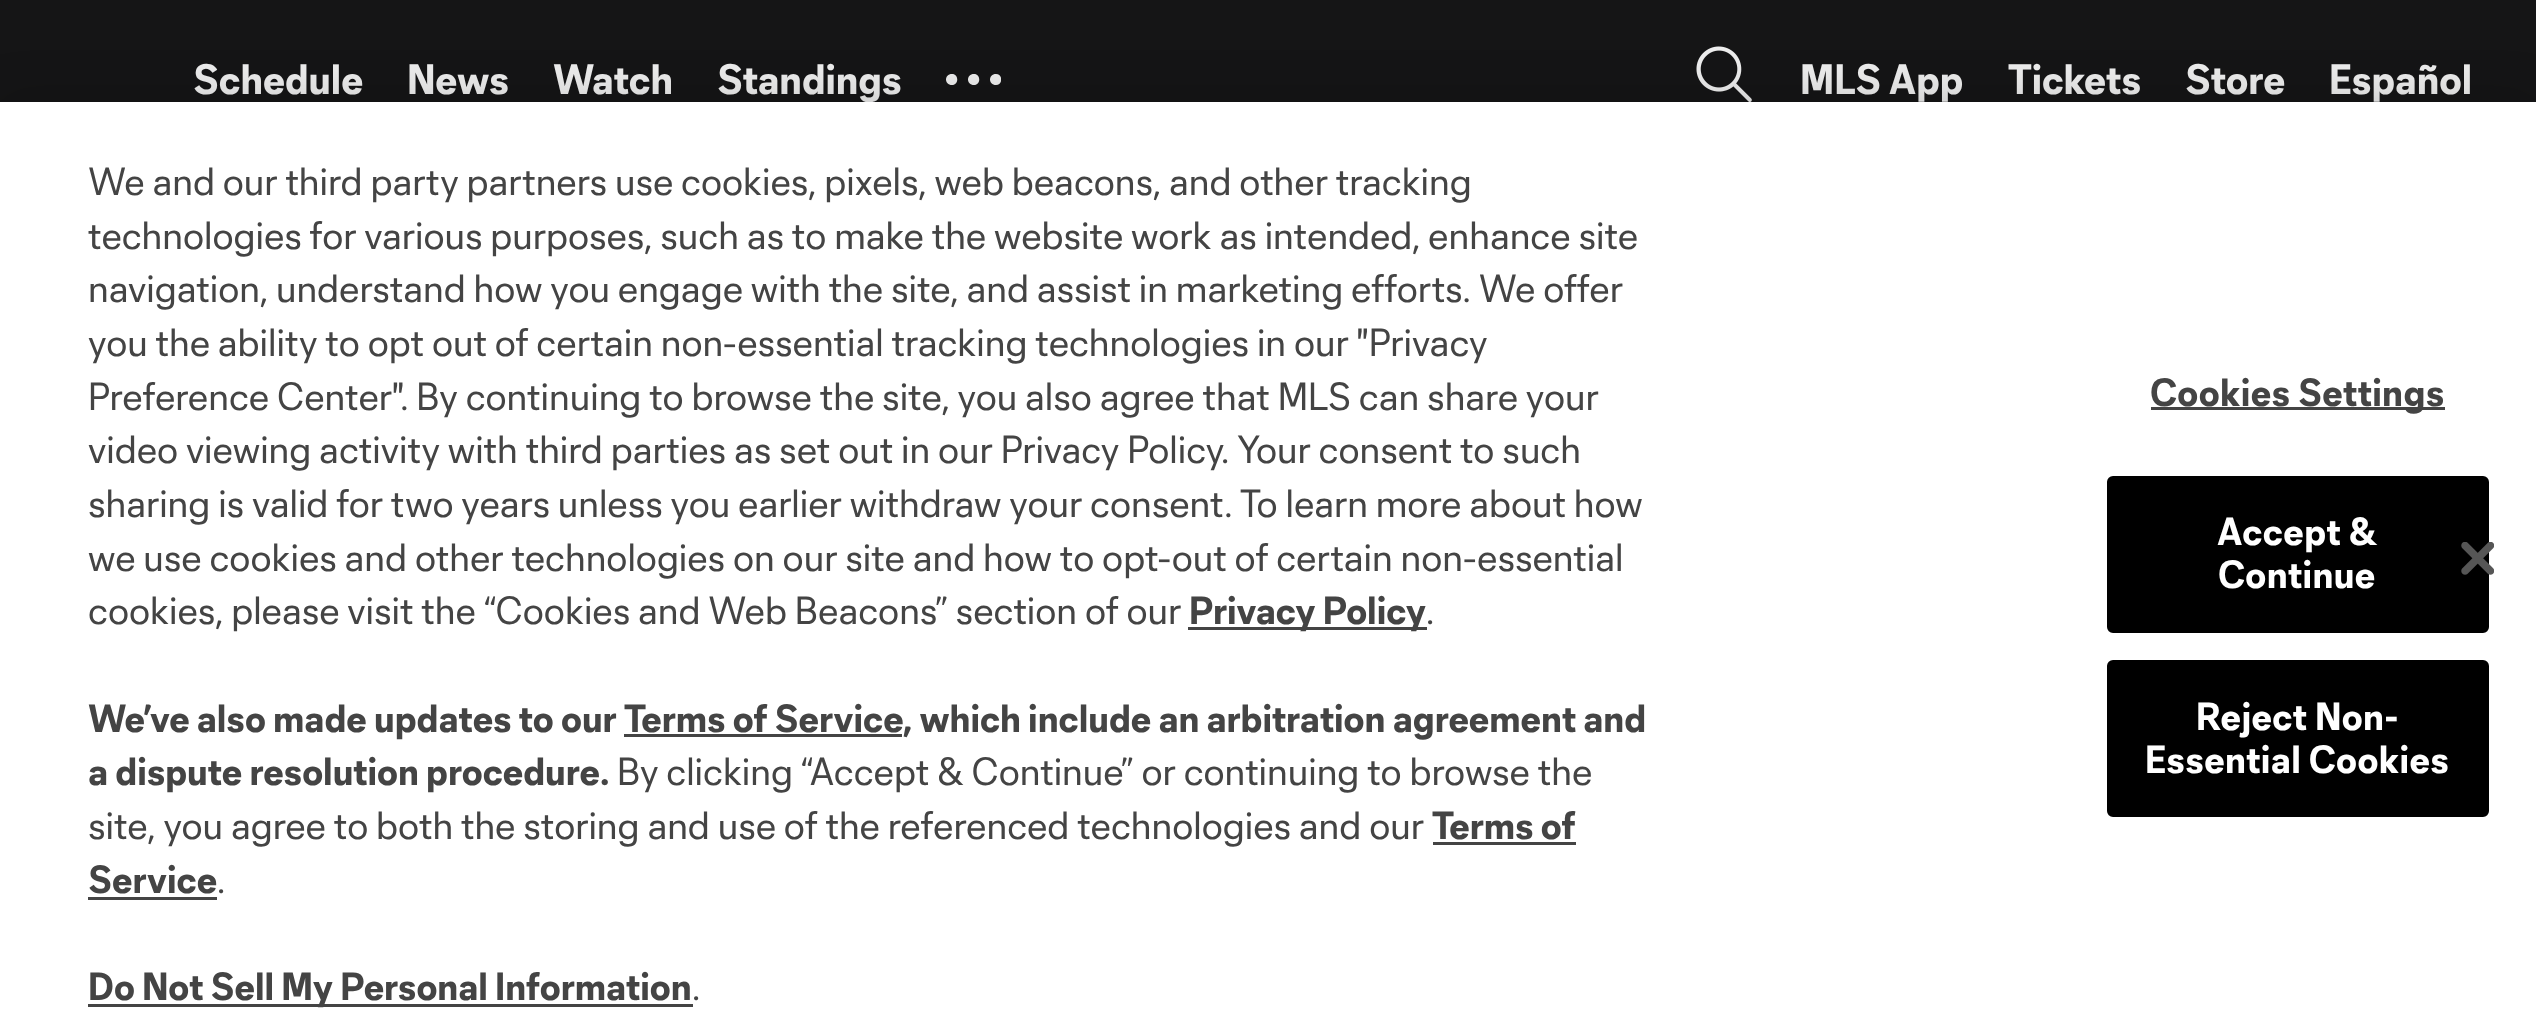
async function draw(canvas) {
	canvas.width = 2536;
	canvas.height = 1014;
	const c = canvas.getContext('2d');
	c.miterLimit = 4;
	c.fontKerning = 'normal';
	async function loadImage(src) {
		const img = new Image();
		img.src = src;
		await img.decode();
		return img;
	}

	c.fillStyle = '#151516';
	c.fillRect(0, 0, 2536, 1014);
	c.font = 'bold 38.5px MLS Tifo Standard';
	c.fillStyle = '#ededed';
	for (const [text, x, y] of [
		['Schedule', 193, 94],
		['News', 407, 94],
		['Watch', 553, 94],
		['Standings', 717, 94],
	]) {
		c.fillText(text, x, y);
	}
	c.save();
	c.beginPath();
	c.rect(946, 74, 55, 55);
	c.clip();
	c.beginPath();
	c.moveTo(952, 74);
	c.bezierCurveTo(959, 74, 959, 85, 952, 85);
	c.bezierCurveTo(944, 85, 944, 74, 952, 74);
	c.closePath();
	c.moveTo(974, 74);
	c.bezierCurveTo(981, 74, 981, 85, 974, 85);
	c.bezierCurveTo(966, 85, 966, 74, 974, 74);
	c.closePath();
	c.moveTo(996, 74);
	c.bezierCurveTo(1003, 74, 1003, 85, 996, 85);
	c.bezierCurveTo(988, 85, 988, 74, 996, 74);
	c.closePath();
	c.fill();
	c.restore();
	c.drawImage(await loadImage('img1.png'), 1696, 46, 56, 56);
	for (const [text, x, y] of [
		['MLS App', 1800, 94],
		['Tickets', 2008, 94],
		['Store', 2185, 94],
		['Español', 2329, 94],
	]) {
		c.fillText(text, x, y);
	}
	c.fillStyle = '#00000033';
	c.filter = 'blur(25px)';
	c.beginPath();
	c.rect(0, 102, 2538, 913);
	c.fill();
	c.filter = 'none';
	c.fillStyle = '#fff';
	c.fillRect(0, 102, 2536, 912);
	c.font = '35.75px MLS Tifo Standard';
	c.fillStyle = '#444';
	for (const [text, x, y] of [
		['We and our third party partners use cookies, pixels, web beacons, and other tracking', 88, 195],
		['technologies for various purposes, such as to make the website work as intended, enhance site', 88, 249],
		['navigation, understand how you engage with the site, and assist in marketing efforts. We offer', 88, 302],
		['you the ability to opt out of certain non-essential tracking technologies in our "Privacy', 88, 356],
		['Preference Center". By continuing to browse the site, you also agree that MLS can share your', 88, 410],
		['video viewing activity with third parties as set out in our Privacy Policy. Your consent to such', 88, 463],
		['sharing is valid for two years unless you earlier withdraw your consent.', 88, 517],
		['To learn more about how', 1240, 517],
		['we use cookies and other technologies on our site and how to opt-out of certain non-essential', 88, 571],
		['cookies, please visit the “Cookies and Web Beacons” section of our', 88, 624],
	]) {
		c.fillText(text, x, y);
	}
	c.fillRect(1188, 627, 239, 3);
	c.font = 'bold 35.75px MLS Tifo Standard';
	c.fillText('Privacy Policy', 1189, 624);
	c.font = '35.75px MLS Tifo Standard';
	c.fillText('.', 1426, 624);
	c.font = 'bold 35.75px MLS Tifo Standard';
	for (const [text, x, y] of [
		['We’ve also made updates to our', 88, 732],
		['Terms of Service', 624, 732],
		[', which include an arbitration agreement and', 903, 732],
	]) {
		c.fillText(text, x, y);
	}
	c.fillRect(624, 734, 278, 3);
	c.fillText('a dispute resolution procedure.', 88, 785);
	c.font = '35.75px MLS Tifo Standard';
	c.fillText('By clicking “Accept & Continue” or continuing to browse the', 617, 785);
	c.fillText('site, you agree to both the storing and use of the referenced technologies and our', 88, 839);
	c.font = 'bold 35.75px MLS Tifo Standard';
	c.fillText('Terms of', 1432, 839);
	c.fillRect(1433, 842, 143, 3);
	c.fillText('Service', 88, 893);
	c.fillRect(88, 897, 129, 3);
	c.font = '35.75px MLS Tifo Standard';
	c.fillText('.', 217, 893);
	c.fillRect(88, 1004, 605, 3);
	c.font = 'bold 35.75px MLS Tifo Standard';
	c.fillText('Do Not Sell My Personal Information', 88, 1000);
	c.font = '35.75px MLS Tifo Standard';
	c.fillText('.', 692, 1000);
	c.fillRect(2151, 407, 294, 3);
	c.letterSpacing = '0.4px';
	c.font = 'bold 35.75px MLS Tifo Standard';
	c.fillText('Cookies Settings', 2150, 406);
	c.fillStyle = '#000';
	c.beginPath();
	c.roundRect(2108.5, 477.5, 379, 154, 4.5);
	c.fill();
	c.strokeStyle = '#000';
	c.lineWidth = 3;
	c.stroke();
	c.fillStyle = '#fff';
	c.fillText('Accept &', 2217, 545);
	c.fillText('Continue', 2218, 588);
	c.fillStyle = '#000';
	c.beginPath();
	c.roundRect(2108.5, 661.5, 379, 154, 4.5);
	c.fill();
	c.stroke();
	c.fillStyle = '#fff';
	c.fillText('Reject Non-', 2196, 730);
	c.fillText('Essential Cookies', 2145, 773);
	c.drawImage(await loadImage('img2.png'), 2461, 542, 33, 33);
}

draw(document.querySelector('canvas'));
